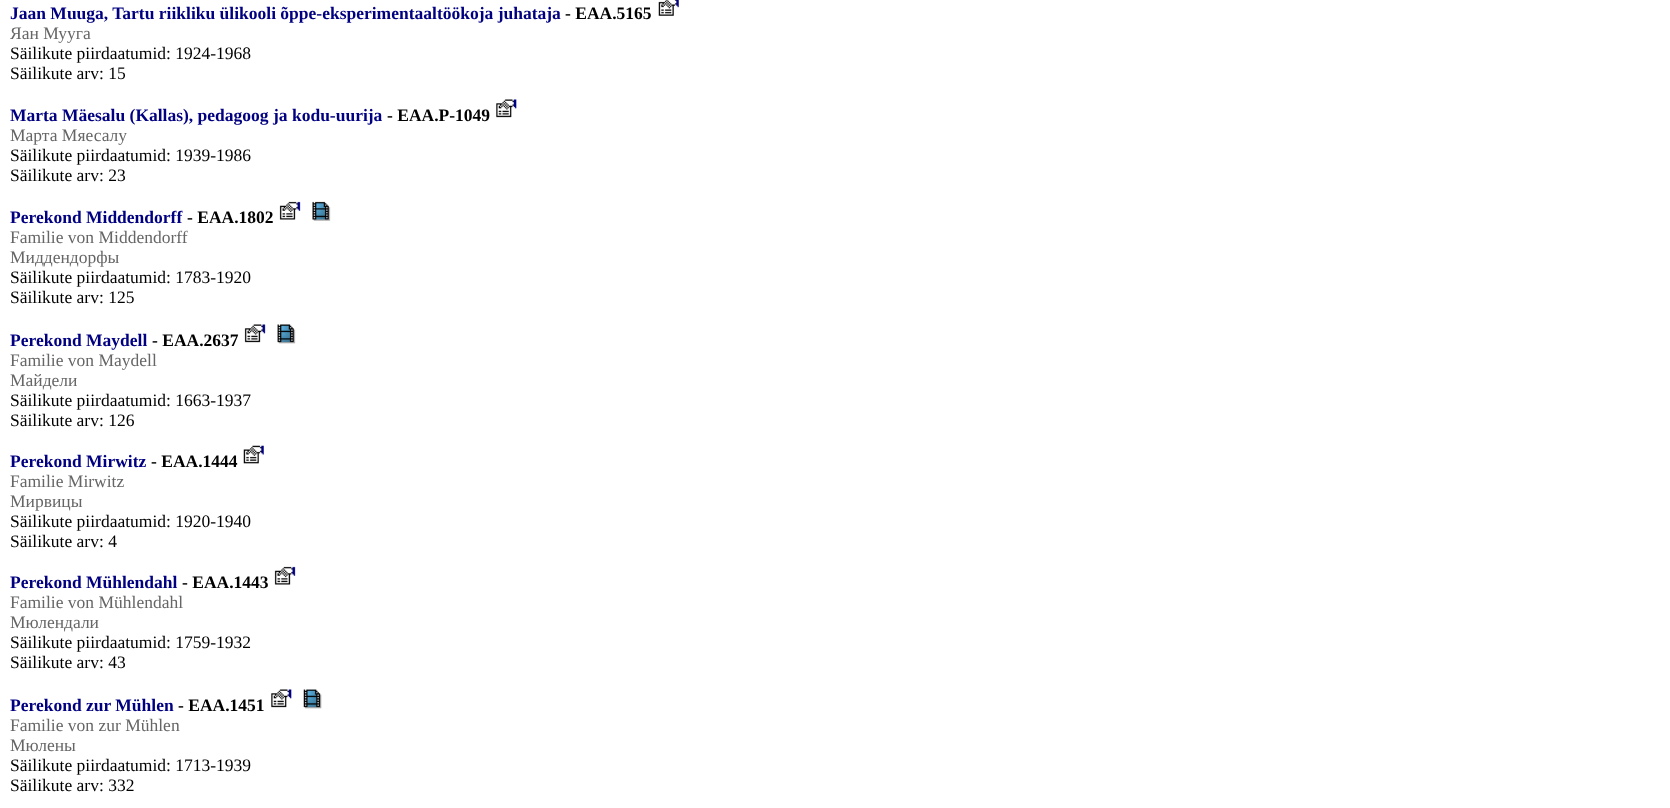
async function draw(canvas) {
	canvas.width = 1670;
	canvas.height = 808;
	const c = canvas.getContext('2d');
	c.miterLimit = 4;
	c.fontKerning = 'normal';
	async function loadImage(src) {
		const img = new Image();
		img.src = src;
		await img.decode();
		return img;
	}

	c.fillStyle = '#fff';
	c.fillRect(0, 0, 1670, 808);
	c.font = 'bold 17.5px Liberation Serif';
	c.fillStyle = '#000080';
	c.fillText('Jaan Muuga, Tartu riikliku ülikooli õppe-eksperimentaaltöökoja juhataja', 10, 19);
	c.fillStyle = '#000';
	c.fillText('- EAA.5165', 565, 19);
	c.drawImage(await loadImage('img1.png'), 658, 0, 21, 16);
	c.font = '17.5px Liberation Serif';
	c.fillStyle = '#666';
	c.fillText('Яан Мууга', 10, 39);
	c.fillStyle = '#000';
	c.fillText('Säilikute piirdaatumid: 1924-1968', 10, 59);
	c.fillText('Säilikute arv: 15', 10, 79);
	c.font = 'bold 17.5px Liberation Serif';
	c.fillStyle = '#000080';
	c.fillText('Marta Mäesalu (Kallas), pedagoog ja kodu-uurija', 10, 121);
	c.fillStyle = '#000';
	c.fillText('- EAA.P-1049', 387, 121);
	c.drawImage(await loadImage('img2.png'), 496, 99, 21, 19);
	c.font = '17.5px Liberation Serif';
	c.fillStyle = '#666';
	c.fillText('Марта Мяесалу', 10, 141);
	c.fillStyle = '#000';
	c.fillText('Säilikute piirdaatumid: 1939-1986', 10, 161);
	c.fillText('Säilikute arv: 23', 10, 181);
	c.font = 'bold 17.5px Liberation Serif';
	c.fillStyle = '#000080';
	c.fillText('Perekond Middendorff', 10, 223);
	c.fillStyle = '#000';
	c.fillText('- EAA.1802', 187, 223);
	c.drawImage(await loadImage('img3.png'), 279, 201, 22, 19);
	c.drawImage(await loadImage('img4.png'), 312, 201, 19, 20);
	c.font = '17.5px Liberation Serif';
	c.fillStyle = '#666';
	c.fillText('Familie von Middendorff', 10, 243);
	c.fillText('Миддендорфы', 10, 263);
	c.fillStyle = '#000';
	c.fillText('Säilikute piirdaatumid: 1783-1920', 10, 283);
	c.fillText('Säilikute arv: 125', 10, 303);
	c.font = 'bold 17.5px Liberation Serif';
	c.fillStyle = '#000080';
	c.fillText('Perekond Maydell', 10, 346);
	c.fillStyle = '#000';
	c.fillText('- EAA.2637', 152, 346);
	c.drawImage(await loadImage('img5.png'), 244, 324, 22, 19);
	c.drawImage(await loadImage('img6.png'), 277, 324, 19, 20);
	c.font = '17.5px Liberation Serif';
	c.fillStyle = '#666';
	c.fillText('Familie von Maydell', 10, 366);
	c.fillText('Майдели', 10, 386);
	c.fillStyle = '#000';
	c.fillText('Säilikute piirdaatumid: 1663-1937', 10, 406);
	c.fillText('Säilikute arv: 126', 10, 426);
	c.font = 'bold 17.5px Liberation Serif';
	c.fillStyle = '#000080';
	c.fillText('Perekond Mirwitz', 10, 467);
	c.fillStyle = '#000';
	c.fillText('- EAA.1444', 151, 467);
	c.drawImage(await loadImage('img7.png'), 243, 445, 21, 19);
	c.font = '17.5px Liberation Serif';
	c.fillStyle = '#666';
	c.fillText('Familie Mirwitz', 10, 487);
	c.fillText('Мирвицы', 10, 507);
	c.fillStyle = '#000';
	c.fillText('Säilikute piirdaatumid: 1920-1940', 10, 527);
	c.fillText('Säilikute arv: 4', 10, 547);
	c.font = 'bold 17.5px Liberation Serif';
	c.fillStyle = '#000080';
	c.fillText('Perekond Mühlendahl', 10, 588);
	c.fillStyle = '#000';
	c.fillText('- EAA.1443', 182, 588);
	c.drawImage(await loadImage('img8.png'), 274, 566, 22, 19);
	c.font = '17.5px Liberation Serif';
	c.fillStyle = '#666';
	c.fillText('Familie von Mühlendahl', 10, 608);
	c.fillText('Мюлендали', 10, 628);
	c.fillStyle = '#000';
	c.fillText('Säilikute piirdaatumid: 1759-1932', 10, 648);
	c.fillText('Säilikute arv: 43', 10, 668);
	c.font = 'bold 17.5px Liberation Serif';
	c.fillStyle = '#000080';
	c.fillText('Perekond zur Mühlen', 10, 711);
	c.fillStyle = '#000';
	c.fillText('- EAA.1451', 178, 711);
	c.drawImage(await loadImage('img2.png'), 271, 689, 21, 19);
	c.drawImage(await loadImage('img9.png'), 303, 689, 19, 20);
	c.font = '17.5px Liberation Serif';
	c.fillStyle = '#666';
	c.fillText('Familie von zur Mühlen', 10, 731);
	c.fillText('Мюлены', 10, 751);
	c.fillStyle = '#000';
	c.fillText('Säilikute piirdaatumid: 1713-1939', 10, 771);
	c.fillText('Säilikute arv: 332', 10, 791);
}

draw(document.querySelector('canvas'));
